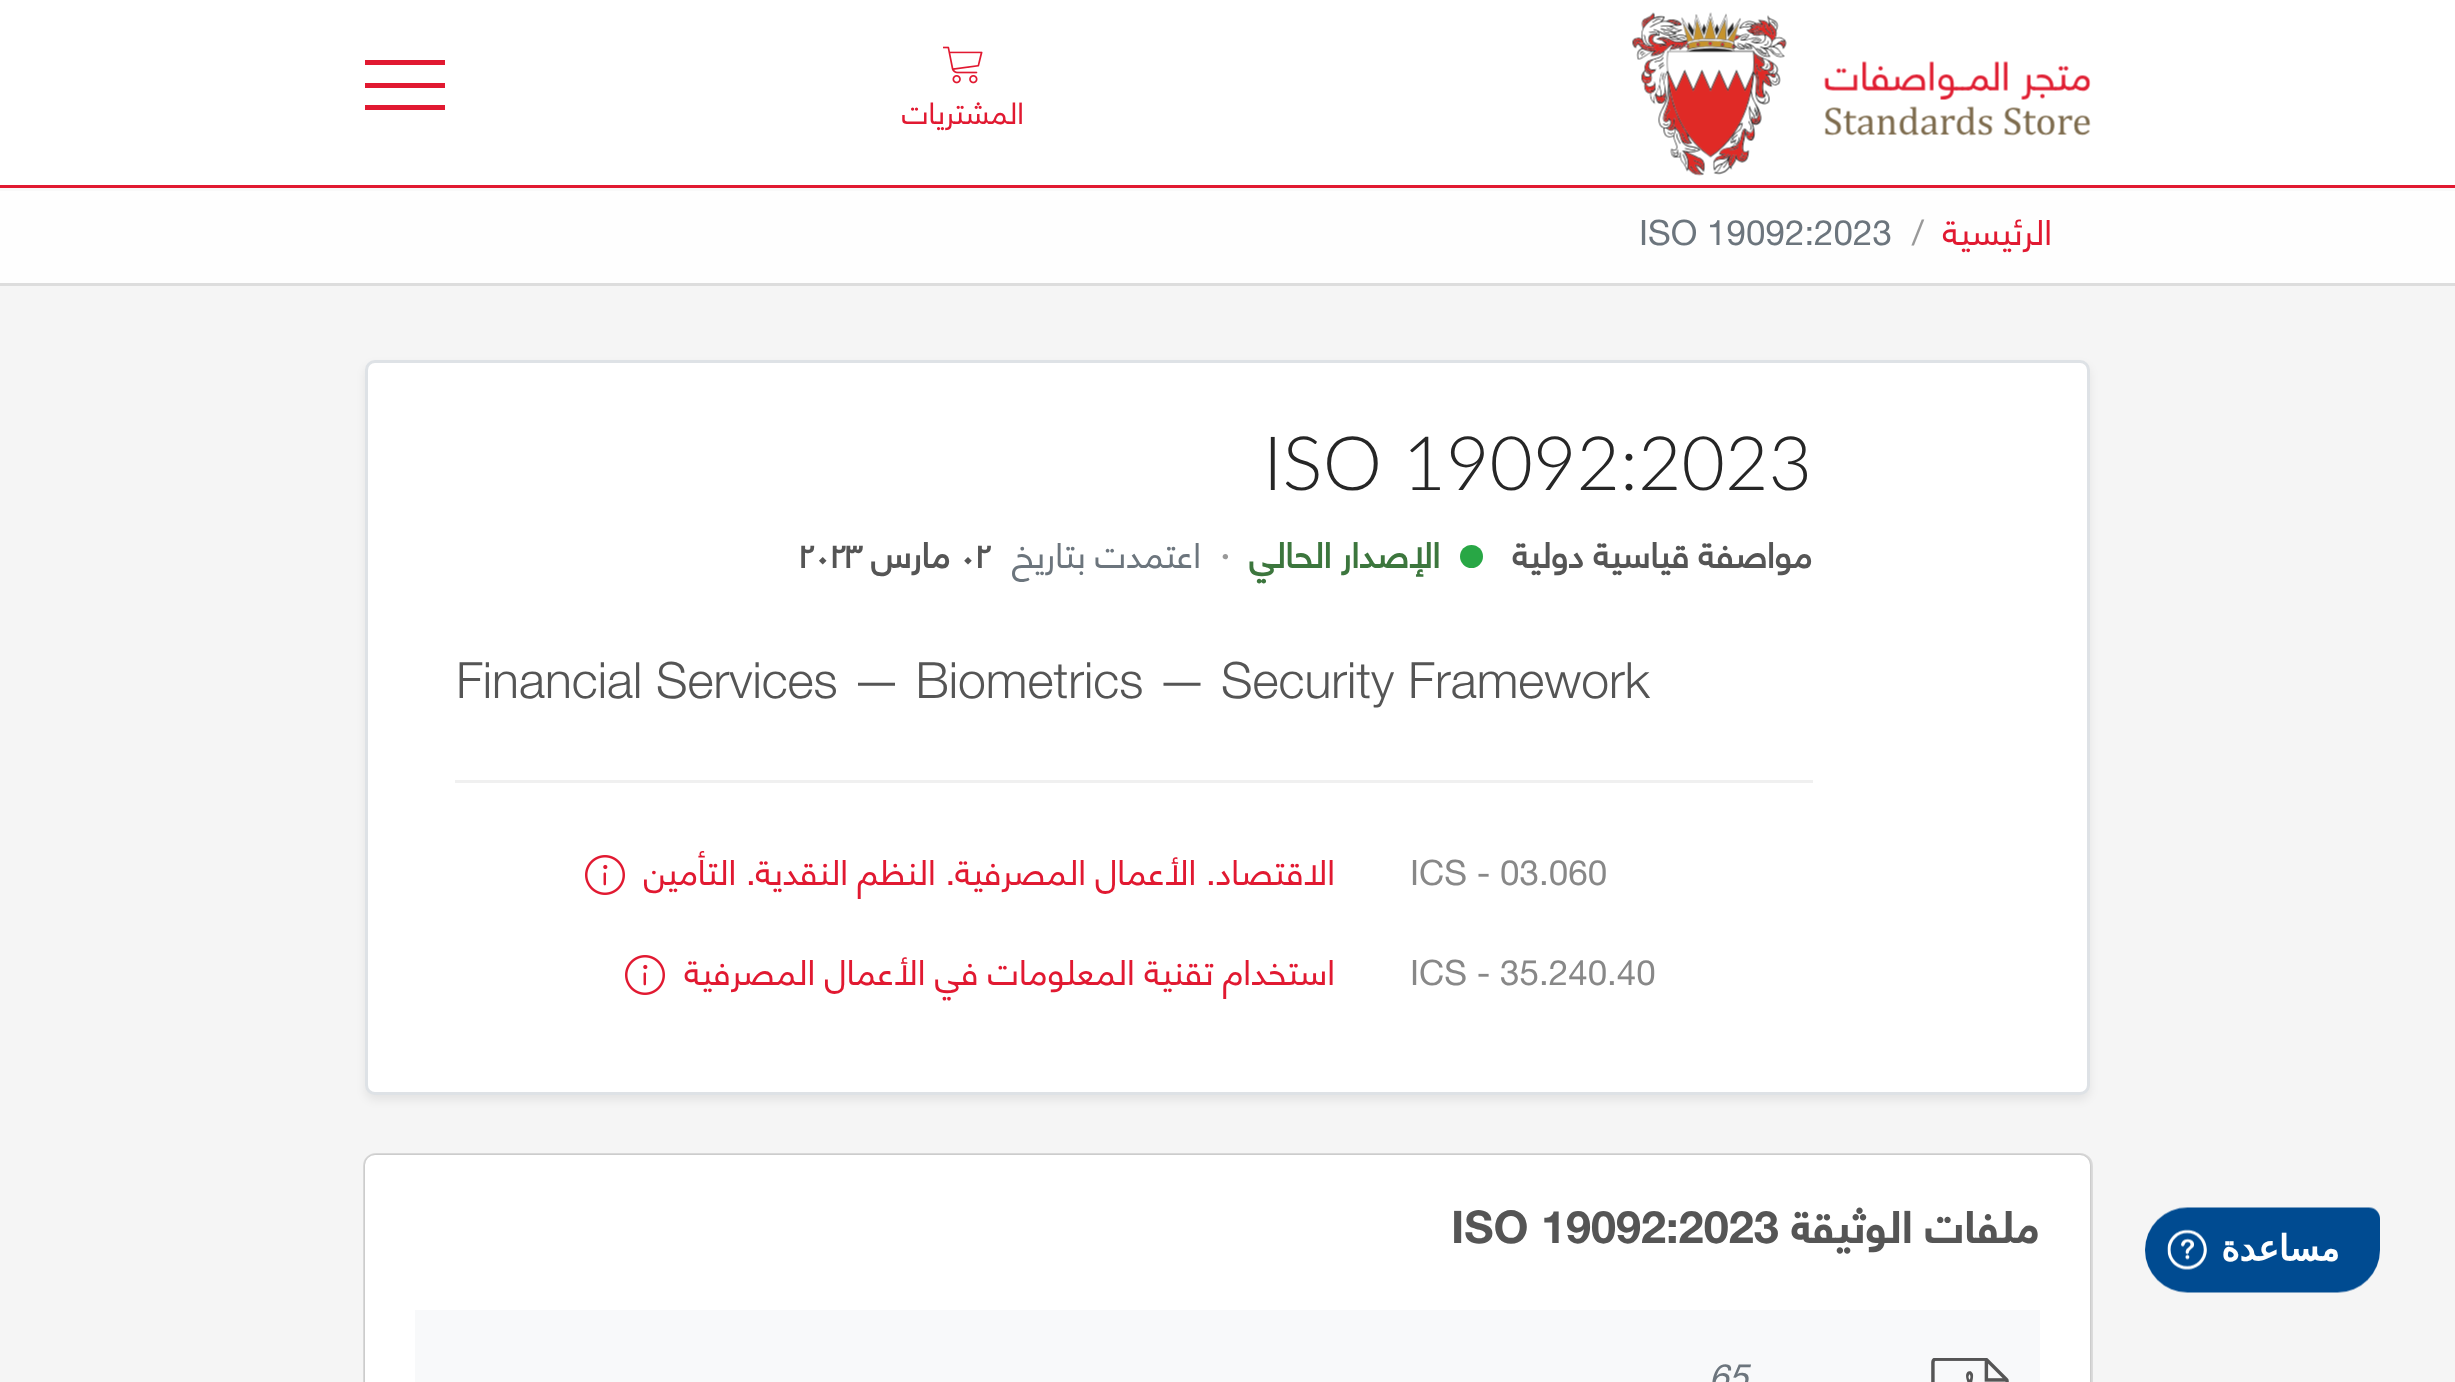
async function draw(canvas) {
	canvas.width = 2455;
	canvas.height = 1382;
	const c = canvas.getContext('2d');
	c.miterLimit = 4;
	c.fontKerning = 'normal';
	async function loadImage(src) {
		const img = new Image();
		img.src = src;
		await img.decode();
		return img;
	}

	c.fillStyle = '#f5f5f5';
	c.fillRect(0, 0, 2455, 1382);
	c.fillStyle = '#fff';
	c.fillRect(0, 0, 2455, 185);
	c.fillStyle = '#e11931';
	c.fillRect(0, 185, 2455, 3);
	c.drawImage(await loadImage('img1.png'), 1632, 12, 459, 164);
	for (const [x, y, w, h, color] of [
		[365, 60, 80, 5, '#e11931'],
		[365, 83, 80, 5, '#e11931'],
		[365, 105, 80, 5, '#e11931'],
	]) {
		c.fillStyle = color;
		c.fillRect(x, y, w, h);
	}
	c.drawImage(await loadImage('img2.png'), 943, 46, 40, 38);
	c.direction = 'rtl';
	c.font = '30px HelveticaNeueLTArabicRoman';
	c.fillText('المشتريات', 1024, 124);
	for (const [x, y, w, h, color] of [
		[0, 191, 2455, 92, '#fefefe'],
		[0, 188, 2455, 3, '#f9f9f9'],
		[0, 283, 2455, 3, '#ddd'],
	]) {
		c.fillStyle = color;
		c.fillRect(x, y, w, h);
	}
	c.font = '35px HelveticaNeueLTArabicRoman';
	c.fillStyle = '#e11931';
	c.fillText('الرئيسية', 2052, 245);
	c.direction = 'ltr';
	c.fillStyle = '#999';
	c.fillText('/', 1912, 245);
	c.fillStyle = '#6c757d';
	c.fillText('ISO 19092:2023', 1639, 245);
	c.drawImage(await loadImage('img3.png'), 2145, 1207, 235, 86);
	c.fillStyle = '#00000012';
	c.filter = 'blur(5px)';
	c.beginPath();
	c.roundRect(365, 365, 1725, 735, 10);
	c.fill();
	c.filter = 'none';
	c.fillStyle = '#fff';
	c.beginPath();
	c.roundRect(366.5, 361.5, 1722, 732, 8.5);
	c.fill();
	c.strokeStyle = '#dee2e6';
	c.lineWidth = 3;
	c.stroke();
	c.font = '300 75px Lato';
	c.fillStyle = '#262626';
	c.fillText('ISO 19092:2023', 1263, 490);
	c.direction = 'rtl';
	c.font = 'bold 35px HelveticaNeueLTArabicRoman';
	c.fillStyle = '#555';
	c.fillText('مواصفة قياسية دولية', 1812, 568);
	c.fillStyle = '#28a745';
	c.beginPath();
	c.arc(1471.5, 556.5, 11.5, 0, 2 * Math.PI);
	c.fill();
	c.fillStyle = '#3c763d';
	c.fillText('الإصدار الحالي', 1440, 568);
	c.direction = 'ltr';
	c.fillStyle = '#999';
	c.fillText('·', 1220, 568);
	c.direction = 'rtl';
	c.font = '35px HelveticaNeueLTArabicRoman';
	c.fillStyle = '#6c757d';
	c.fillText('اعتمدت بتاريخ', 1201, 568);
	c.direction = 'ltr';
	c.font = 'bold 35px HelveticaNeueLTArabicRoman';
	c.fillStyle = '#555';
	c.fillText('٠٢', 960, 568);
	c.direction = 'rtl';
	c.fillText('مارس', 950, 568);
	c.direction = 'ltr';
	c.fillText('٢٠٢٣', 799, 568);
	c.font = '50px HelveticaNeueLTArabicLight';
	c.fillText('Financial Services — Biometrics — Security Framework', 456, 698);
	c.fillStyle = '#f0f0f0';
	c.fillRect(455, 780, 1358, 3);
	c.font = '35px HelveticaNeueLTArabicRoman';
	c.fillStyle = '#888';
	c.fillText('ICS - 03.060', 1410, 885);
	c.direction = 'rtl';
	c.fillStyle = '#e11931';
	c.fillText('الاقتصاد. الأعمال المصرفية. النظم النقدية. التأمين', 1335, 885);
	c.drawImage(await loadImage('img4.png'), 585, 855, 40, 40);
	c.direction = 'ltr';
	c.fillStyle = '#888';
	c.fillText('ICS - 35.240.40', 1410, 985);
	c.direction = 'rtl';
	c.fillStyle = '#e11931';
	c.fillText('استخدام تقنية المعلومات في الأعمال المصرفية', 1335, 985);
	c.drawImage(await loadImage('img4.png'), 625, 955, 40, 40);
	c.fillStyle = '#00000033';
	c.filter = 'blur(1px)';
	c.beginPath();
	c.roundRect(365, 1155, 1725, 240, 10);
	c.fill();
	c.filter = 'none';
	c.beginPath();
	c.roundRect(364.5, 1154.5, 1727, 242, 11.5);
	c.strokeStyle = '#0000001a';
	c.stroke();
	c.fillStyle = '#fff';
	c.beginPath();
	c.roundRect(365, 1155, 1725, 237, 10);
	c.fill();
	c.font = '45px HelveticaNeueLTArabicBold';
	c.fillStyle = '#555';
	c.fillText('ملفات الوثيقة', 2040, 1243);
	c.direction = 'ltr';
	c.fillText('ISO 19092:2023', 1451, 1243);
	c.fillStyle = '#f8f9fa';
	c.fillRect(415, 1310, 1625, 72);
	c.drawImage(await loadImage('img5.png'), 1931, 1358, 78, 24);
	c.font = 'italic 35px HelveticaNeueLTArabicRoman';
	c.fillStyle = '#6c757d';
	c.fillText('65', 1709, 1389);
}

draw(document.querySelector('canvas'));
